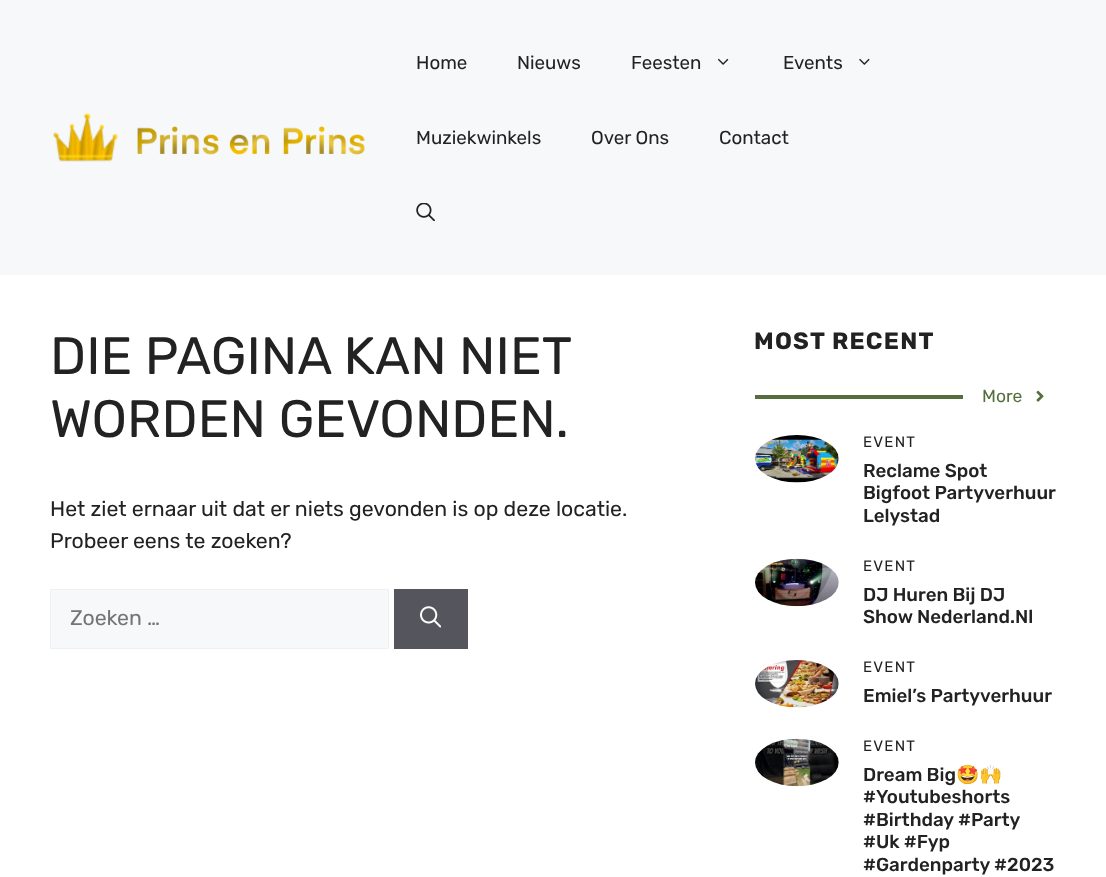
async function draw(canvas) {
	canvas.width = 1106;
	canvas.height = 877;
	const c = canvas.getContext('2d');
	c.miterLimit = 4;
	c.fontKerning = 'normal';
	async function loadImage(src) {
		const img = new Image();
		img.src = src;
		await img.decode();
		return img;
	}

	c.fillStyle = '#fff';
	c.fillRect(0, 0, 1106, 877);
	c.fillStyle = '#f7f8f9';
	c.fillRect(0, 0, 1106, 275);
	c.drawImage(await loadImage('img1.png'), 53, 112, 312, 50);
	c.font = '18.75px Rubik';
	c.fillStyle = '#222';
	for (const [text, x, y] of [
		['Home', 416, 69],
		['Nieuws', 517, 69],
		['Feesten', 631, 69],
	]) {
		c.fillText(text, x, y);
	}
	c.drawImage(await loadImage('img2.png'), 718, 58, 11, 7);
	c.fillText('Events', 783, 69);
	c.drawImage(await loadImage('img3.png'), 859, 58, 11, 7);
	for (const [text, x, y] of [
		['Muziekwinkels', 416, 144],
		['Over Ons', 591, 144],
		['Contact', 719, 144],
	]) {
		c.fillText(text, x, y);
	}
	c.drawImage(await loadImage('img4.png'), 416, 203, 19, 18);
	c.wordSpacing = '-0.5px';
	c.font = '52.5px Rubik';
	c.fillText('DIE PAGINA KAN NIET', 50, 374);
	c.wordSpacing = '0px';
	c.fillText('WORDEN GEVONDEN.', 50, 437);
	c.font = '21.25px Rubik';
	c.fillText('Het ziet ernaar uit dat er niets gevonden is op deze locatie.', 50, 516);
	c.fillText('Probeer eens te zoeken?', 50, 548);
	c.fillStyle = '#f7f8f9';
	c.beginPath();
	c.rect(50.5, 589.5, 338, 59);
	c.fill();
	c.strokeStyle = '#f0f0f0';
	c.stroke();
	c.fillStyle = '#757575';
	c.fillText('Zoeken …', 70, 625);
	c.fillStyle = '#55555e';
	c.fillRect(394, 589, 74, 60);
	c.drawImage(await loadImage('img5.png'), 420, 606, 21, 22);
	c.letterSpacing = '1.25px';
	c.font = 'bold 23.75px Rubik';
	c.fillStyle = '#222';
	c.fillText('MOST RECENT', 754, 349);
	c.fillStyle = '#566e3d';
	c.fillRect(755, 395, 208, 4);
	c.letterSpacing = '0px';
	c.font = '17.5px Rubik';
	c.fillText('More', 982, 402);
	c.drawImage(await loadImage('img6.png'), 1036, 390, 8, 12);
	c.drawImage(await loadImage('img7.png'), 755, 435, 84, 48);
	c.letterSpacing = '1.25px';
	c.font = '15px Rubik';
	c.fillStyle = '#222';
	c.fillText('EVENT', 863, 447);
	c.letterSpacing = '0px';
	c.font = '500 18.75px Rubik';
	for (const [text, x, y] of [
		['Reclame Spot', 863, 477],
		['Bigfoot Partyverhuur', 863, 499],
		['Lelystad', 863, 522],
	]) {
		c.fillText(text, x, y);
	}
	c.drawImage(await loadImage('img8.png'), 755, 558, 84, 49);
	c.letterSpacing = '1.25px';
	c.font = '15px Rubik';
	c.fillText('EVENT', 863, 571);
	c.letterSpacing = '0px';
	c.font = '500 18.75px Rubik';
	c.fillText('DJ Huren Bij DJ', 863, 601);
	c.fillText('Show Nederland.Nl', 863, 623);
	c.drawImage(await loadImage('img9.png'), 755, 660, 84, 48);
	c.letterSpacing = '1.25px';
	c.font = '15px Rubik';
	c.fillText('EVENT', 863, 672);
	c.letterSpacing = '0px';
	c.font = '500 18.75px Rubik';
	c.fillText('Emiel’s Partyverhuur', 863, 702);
	c.drawImage(await loadImage('img10.png'), 755, 738, 84, 49);
	c.letterSpacing = '1.25px';
	c.font = '15px Rubik';
	c.fillText('EVENT', 863, 751);
	c.letterSpacing = '0px';
	c.font = '500 18.75px Rubik';
	c.fillText('Dream Big', 863, 781);
	c.font = '18.75px Noto Color Emoji';
	c.fillText('🤩🙌', 956, 781);
	c.font = '500 18.75px Rubik';
	for (const [text, x, y] of [
		['#Youtubeshorts', 863, 803],
		['#Birthday #Party', 863, 826],
		['#Uk #Fyp', 863, 848],
		['#Gardenparty #2023', 863, 871],
	]) {
		c.fillText(text, x, y);
	}
}

draw(document.querySelector('canvas'));
